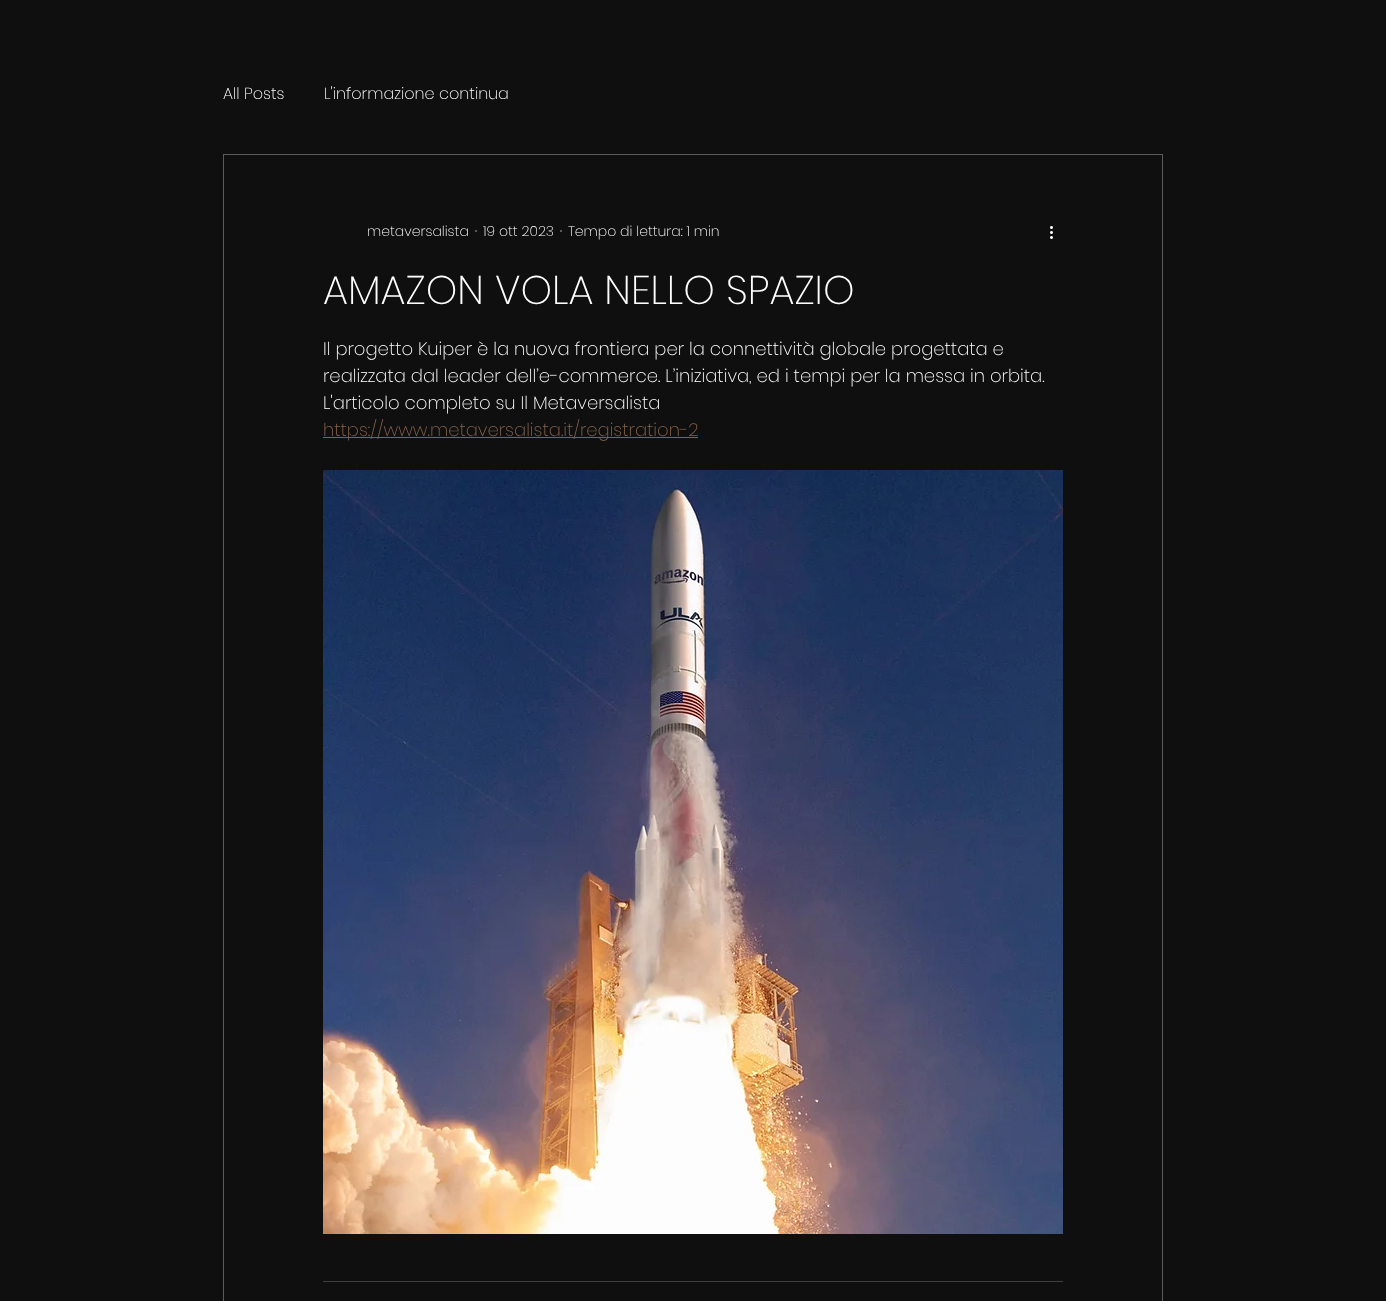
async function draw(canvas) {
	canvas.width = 1386;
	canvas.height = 1301;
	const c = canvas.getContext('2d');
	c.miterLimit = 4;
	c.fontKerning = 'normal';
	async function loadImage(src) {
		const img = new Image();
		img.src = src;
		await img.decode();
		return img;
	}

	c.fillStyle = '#0f0f0f';
	c.fillRect(0, 0, 1386, 1301);
	c.font = '200 16px Poppins';
	c.fillStyle = '#fff';
	c.fillText('All Posts', 223, 99);
	c.fillText('L\'informazione continua', 324, 99);
	c.strokeStyle = '#5a5a5a';
	c.strokeRect(223.5, 154.5, 939, 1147);
	c.font = '200 14px Poppins';
	for (const [text, x, y] of [
		['metaversalista', 367, 236],
		['·', 475, 236],
		['19 ott 2023', 483, 236],
		['·', 560, 236],
		['Tempo di lettura: 1 min', 568, 236],
	]) {
		c.fillText(text, x, y);
	}
	c.drawImage(await loadImage('img1.png'), 1050, 226, 3, 13);
	c.font = '200 40px Poppins';
	c.fillText('AMAZON VOLA NELLO SPAZIO', 323, 304);
	c.font = '200 18px Poppins';
	for (const [text, x, y] of [
		['Il progetto Kuiper è la nuova frontiera per la connettività globale progettata e', 323, 355],
		['realizzata dal leader dell’e-commerce. L’iniziativa, ed i tempi per la messa in orbita.', 323, 382],
		['L\'articolo completo su Il Metaversalista', 323, 409],
	]) {
		c.fillText(text, x, y);
	}
	c.fillStyle = '#86624c';
	c.fillRect(323, 437, 375, 1);
	c.fillText('https://www.metaversalista.it/registration-2', 323, 436);
	c.drawImage(await loadImage('img2.png'), 323, 470, 740, 764);
	c.fillStyle = '#3f3f3f';
	c.fillRect(323, 1281, 740, 1);
}

draw(document.querySelector('canvas'));
